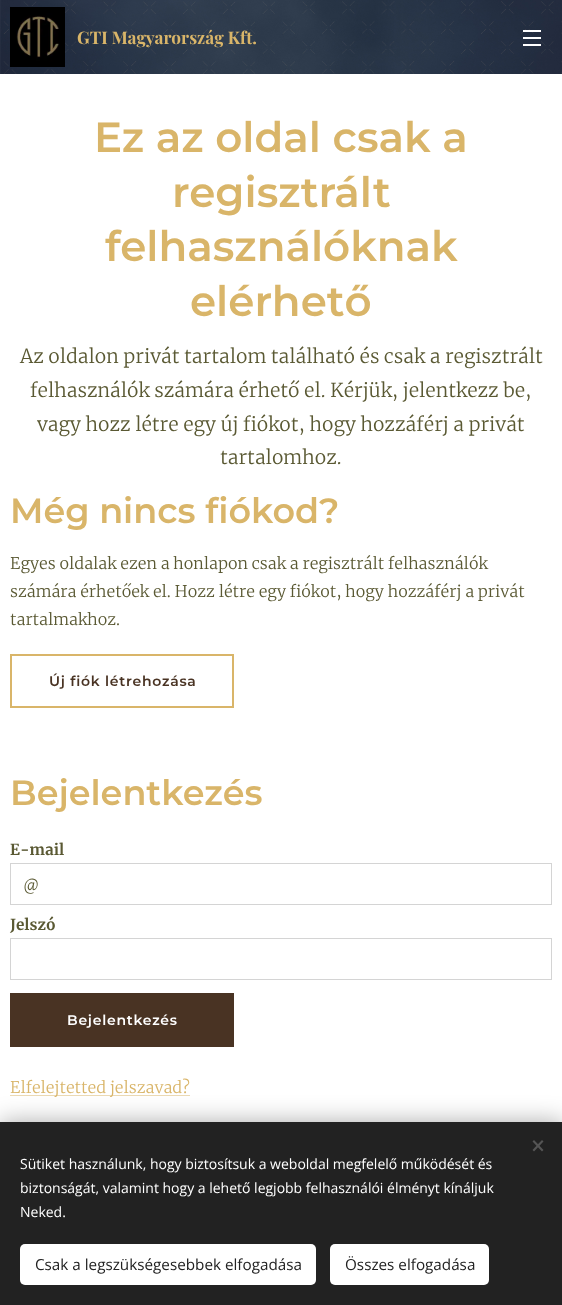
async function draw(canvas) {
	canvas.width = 562;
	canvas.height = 1305;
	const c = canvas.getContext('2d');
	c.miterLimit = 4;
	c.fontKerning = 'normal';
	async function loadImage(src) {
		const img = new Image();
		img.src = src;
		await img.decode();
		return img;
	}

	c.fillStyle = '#fff';
	c.fillRect(0, 0, 562, 1305);
	c.drawImage(await loadImage('img1.png'), 0, 0, 562, 74);
	c.drawImage(await loadImage('img2.png'), 10, 7, 55, 60);
	c.font = 'bold 17.25px Playfair Display';
	c.fillStyle = '#d9b569';
	c.fillText('GTI Magyarország Kft.', 77, 44);
	for (const [x, y, w, h, color] of [
		[523, 37, 18, 2, '#fff'],
		[523, 30, 18, 2, '#fff'],
		[523, 44, 18, 2, '#fff'],
	]) {
		c.fillStyle = color;
		c.fillRect(x, y, w, h);
	}
	c.font = '600 42px Montserrat';
	c.fillStyle = '#d9b569';
	for (const [text, x, y] of [
		['Ez az oldal csak a', 94, 152],
		['regisztrált', 172, 207],
		['felhasználóknak', 105, 261],
		['elérhető', 190, 316],
	]) {
		c.fillText(text, x, y);
	}
	c.font = '300 19.2px Merriweather';
	c.fillStyle = '#5a5933';
	for (const [text, x, y] of [
		['Az oldalon privát tartalom található és csak a regisztrált', 20, 363],
		['felhasználók számára érhető el. Kérjük, jelentkezz be,', 30, 397],
		['vagy hozz létre egy új fiókot, hogy hozzáférj a privát', 37, 431],
		['tartalomhoz.', 220, 464],
	]) {
		c.fillText(text, x, y);
	}
	c.font = '600 35px Montserrat';
	c.fillStyle = '#d9b569';
	c.fillText('Még nincs fiókod?', 10, 523);
	c.font = '300 16px Merriweather';
	c.fillStyle = '#5a5933';
	for (const [text, x, y] of [
		['Egyes oldalak ezen a honlapon csak a regisztrált felhasználók', 10, 569],
		['számára érhetőek el. Hozz létre egy fiókot, hogy hozzáférj a privát', 10, 597],
		['tartalmakhoz.', 10, 625],
	]) {
		c.fillText(text, x, y);
	}
	c.strokeStyle = '#d9b569';
	c.lineWidth = 2;
	c.strokeRect(11, 655, 222, 52);
	c.letterSpacing = '0.75px';
	c.font = '600 14px Montserrat';
	c.fillStyle = '#493323';
	c.fillText('Új fiók létrehozása', 49, 686);
	c.letterSpacing = '0px';
	c.font = '600 35px Montserrat';
	c.fillStyle = '#d9b569';
	c.fillText('Bejelentkezés', 10, 805);
	c.font = 'bold 15.25px Merriweather';
	c.fillStyle = '#5a5933';
	c.fillText('E-mail', 10, 855);
	c.strokeStyle = '#d4d4d4';
	c.lineWidth = 1;
	c.strokeRect(10.5, 863.5, 541, 41);
	c.font = '300 15.25px Merriweather';
	c.fillText('@', 23, 890);
	c.font = 'bold 15.25px Merriweather';
	c.fillText('Jelszó', 10, 930);
	c.strokeRect(10.5, 938.5, 541, 41);
	c.fillStyle = '#493323';
	c.fillRect(10, 993, 224, 54);
	c.letterSpacing = '0.75px';
	c.font = '600 14px Montserrat';
	c.fillStyle = '#fff';
	c.fillText('Bejelentkezés', 67, 1025);
	c.fillStyle = '#ecdab4';
	c.fillRect(10, 1095, 180, 1);
	c.letterSpacing = '0px';
	c.font = '300 16px Merriweather';
	c.fillStyle = '#d9b569';
	c.fillText('Elfelejtetted jelszavad?', 10, 1093);
	c.fillStyle = '#00000054';
	c.filter = 'blur(12.5px)';
	c.beginPath();
	c.rect(0, 1122, 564, 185);
	c.fill();
	c.filter = 'none';
	c.fillStyle = '#222';
	c.fillRect(0, 1122, 562, 183);
	c.fillStyle = '#555';
	c.beginPath();
	c.moveTo(532.5, 1150);
	c.lineTo(542, 1140);
	c.lineTo(543.5, 1141.5);
	c.lineTo(534, 1151.5);
	c.closePath();
	c.fill();
	c.beginPath();
	c.moveTo(534, 1140);
	c.lineTo(543.5, 1150);
	c.lineTo(542, 1151.5);
	c.lineTo(532.5, 1141.5);
	c.closePath();
	c.fill();
	c.font = '14px Open Sans';
	c.fillStyle = '#fff';
	for (const [text, x, y] of [
		['Sütiket használunk, hogy biztosítsuk a weboldal megfelelő működését és', 20, 1169],
		['biztonságát, valamint hogy a lehető legjobb felhasználói élményt kínáljuk', 20, 1193],
		['Neked.', 20, 1217],
	]) {
		c.fillText(text, x, y);
	}
	c.beginPath();
	c.roundRect(20, 1244, 296, 41, 5);
	c.fill();
	c.font = '15.25px Open Sans';
	c.fillStyle = '#222';
	c.fillText('Csak a legszükségesebbek elfogadása', 35, 1270);
	c.fillStyle = '#fff';
	c.beginPath();
	c.roundRect(330, 1244, 159, 41, 5);
	c.fill();
	c.fillStyle = '#222';
	c.fillText('Összes elfogadása', 345, 1270);
}

draw(document.querySelector('canvas'));
